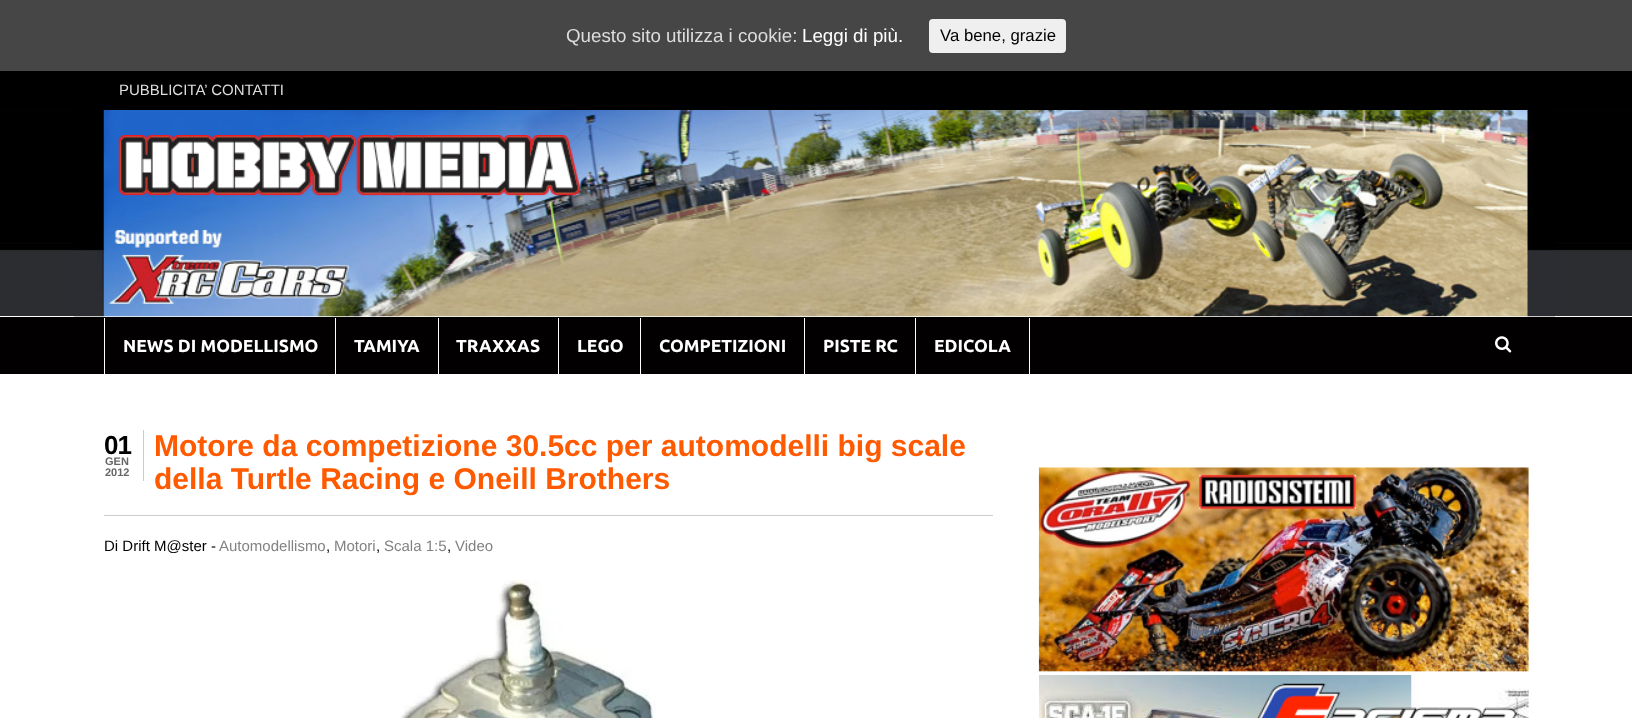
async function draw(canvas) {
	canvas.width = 1632;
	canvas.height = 718;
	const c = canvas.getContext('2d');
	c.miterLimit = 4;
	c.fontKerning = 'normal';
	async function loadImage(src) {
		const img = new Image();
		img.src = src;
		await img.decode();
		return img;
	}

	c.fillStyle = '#fff';
	c.fillRect(0, 0, 1632, 718);
	c.drawImage(await loadImage('img1.png'), 0, 110, 1632, 206);
	c.fillStyle = '#464646';
	c.fillRect(0, 0, 1632, 71);
	c.font = '18.75px Liberation Sans';
	c.fillStyle = '#ddd';
	c.fillText('Questo sito utilizza i cookie:', 566, 42);
	c.fillStyle = '#fff';
	c.fillText('Leggi di più.', 802, 42);
	c.fillStyle = '#efefef';
	c.beginPath();
	c.roundRect(929, 19, 137, 34, 4);
	c.fill();
	c.font = '16.75px Liberation Sans';
	c.fillStyle = '#000';
	c.fillText('Va bene, grazie', 940, 41);
	c.fillRect(0, 71, 1632, 39);
	c.font = '15px Liberation Sans';
	c.fillStyle = '#ddd';
	c.fillText('PUBBLICITA’ CONTATTI', 119, 95);
	c.drawImage(await loadImage('img2.png'), 73, 110, 1482, 207);
	c.drawImage(await loadImage('img3.png'), 118, 135, 463, 61);
	for (const [x, y, w, h, color] of [
		[0, 317, 1632, 57, '#020000'],
		[335, 318, 1, 56, '#fff'],
		[104, 318, 1, 56, '#fff'],
	]) {
		c.fillStyle = color;
		c.fillRect(x, y, w, h);
	}
	c.font = 'bold 17.5px Ubuntu';
	c.fillText('NEWS DI MODELLISMO', 123, 352);
	c.fillRect(438, 318, 1, 56);
	c.fillText('TAMIYA', 354, 352);
	c.fillRect(558, 318, 1, 56);
	c.fillText('TRAXXAS', 456, 352);
	c.fillRect(640, 318, 1, 56);
	c.fillText('LEGO', 577, 352);
	c.fillRect(804, 318, 1, 56);
	c.fillText('COMPETIZIONI', 659, 352);
	c.fillRect(915, 318, 1, 56);
	c.fillText('PISTE RC', 823, 352);
	c.fillRect(1029, 318, 1, 56);
	c.fillText('EDICOLA', 934, 352);
	c.drawImage(await loadImage('img4.png'), 1495, 336, 17, 17);
	c.fillStyle = '#ccc';
	c.fillRect(143, 430, 1, 51);
	c.letterSpacing = '-1px';
	c.font = 'bold 26px Liberation Sans';
	c.fillStyle = '#000';
	c.fillText('01', 104, 454);
	c.letterSpacing = '0px';
	c.font = 'bold 11px Liberation Sans';
	c.fillStyle = '#666';
	c.fillText('GEN', 105, 465);
	c.fillText('2012', 105, 476);
	c.font = 'bold 30px Liberation Sans';
	c.fillStyle = '#ff5a00';
	c.fillText('Motore da competizione 30.5cc per automodelli big scale', 154, 456);
	c.fillText('della Turtle Racing e Oneill Brothers', 154, 489);
	c.fillStyle = '#ccc';
	c.fillRect(104, 515, 889, 1);
	c.font = '15px Liberation Sans';
	c.fillStyle = '#000';
	c.fillText('Di Drift M@ster -', 104, 551);
	c.fillStyle = '#828282';
	c.fillText('Automodellismo', 219, 551);
	c.fillStyle = '#000';
	c.fillText(',', 326, 551);
	c.fillStyle = '#828282';
	c.fillText('Motori', 334, 551);
	c.fillStyle = '#000';
	c.fillText(',', 376, 551);
	c.fillStyle = '#828282';
	c.fillText('Scala 1:5', 384, 551);
	c.fillStyle = '#000';
	c.fillText(',', 447, 551);
	c.fillStyle = '#828282';
	c.fillText('Video', 455, 551);
	c.drawImage(await loadImage('img5.png'), 400, 579, 256, 139);
	c.drawImage(await loadImage('img6.png'), 1038, 467, 491, 205);
	c.drawImage(await loadImage('img7.png'), 1039, 675, 490, 43);
}

draw(document.querySelector('canvas'));
